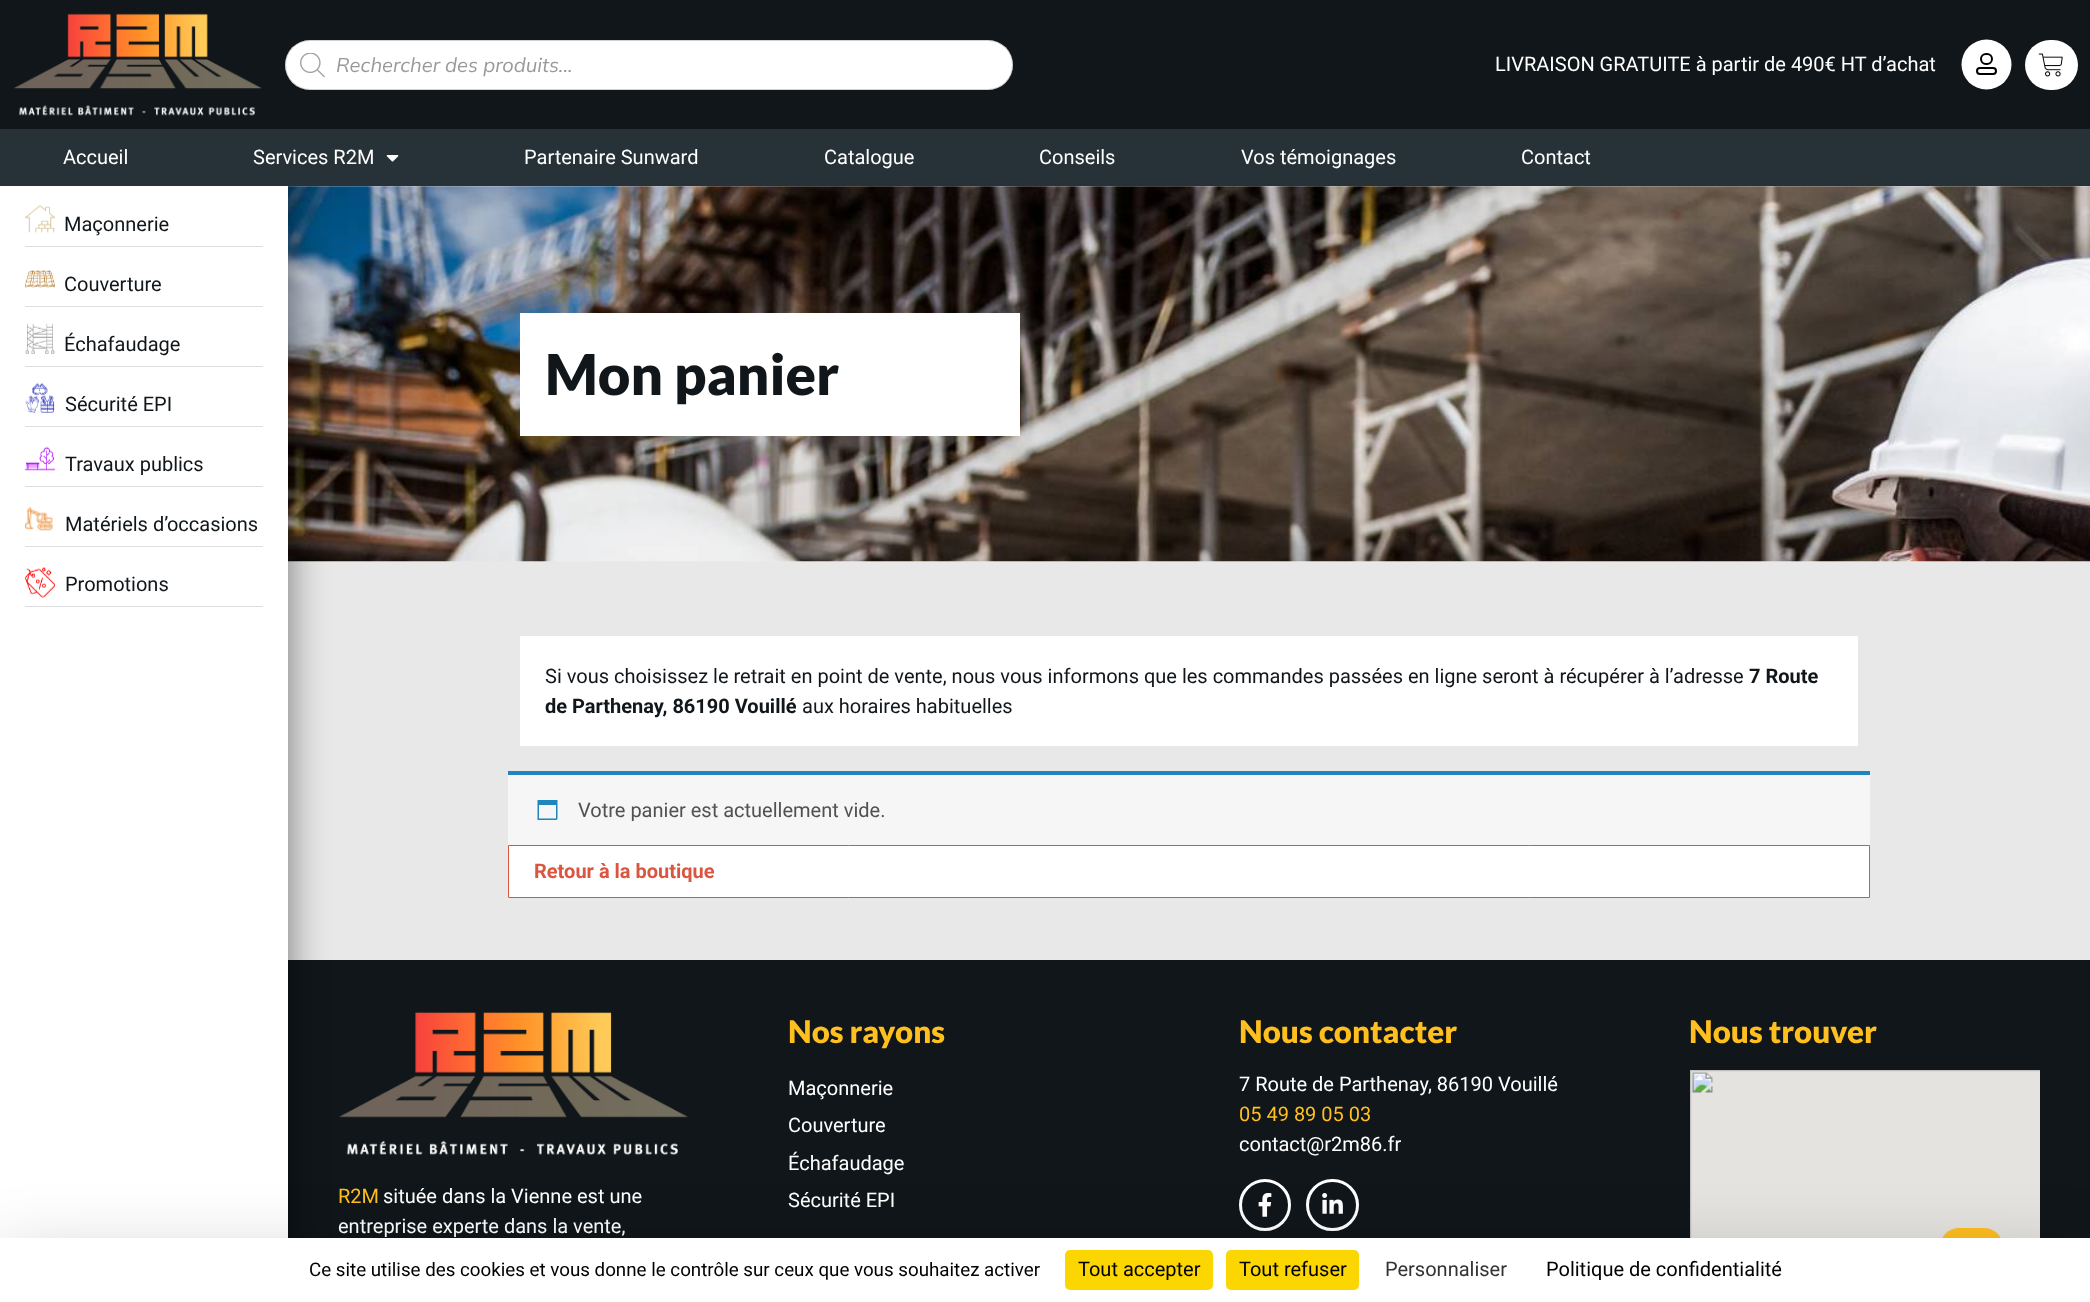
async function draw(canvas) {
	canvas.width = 2090;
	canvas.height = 1302;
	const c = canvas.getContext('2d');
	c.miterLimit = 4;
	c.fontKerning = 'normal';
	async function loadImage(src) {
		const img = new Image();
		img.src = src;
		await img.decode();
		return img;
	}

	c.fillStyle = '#e8e8e8';
	c.fillRect(0, 0, 2090, 1302);
	c.drawImage(await loadImage('img12.png'), 288, 186, 1802, 376);
	c.fillStyle = '#10161a';
	c.fillRect(288, 960, 1802, 278);
	c.drawImage(await loadImage('img17.png'), 339, 1012, 349, 143);
	c.fillStyle = '#00000080';
	c.filter = 'blur(19px)';
	c.beginPath();
	c.rect(0, 0, 288, 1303);
	c.fill();
	c.filter = 'none';
	c.fillStyle = '#10161a';
	c.fillRect(0, 0, 2090, 129);
	c.drawImage(await loadImage('img1.png'), 14, 13, 248, 103);
	c.fillStyle = '#fff';
	c.beginPath();
	c.roundRect(285, 40, 728, 50, 25);
	c.fill();
	c.beginPath();
	c.roundRect(285.5, 40.5, 727, 49, 24.5);
	c.strokeStyle = '#70707054';
	c.stroke();
	c.drawImage(await loadImage('img2.png'), 300, 53, 25, 25);
	c.font = 'italic 20px Mulish';
	c.fillStyle = '#999';
	c.fillText('Rechercher des produits...', 336, 72);
	c.font = '20px Roboto';
	c.fillStyle = '#fff';
	c.fillText('LIVRAISON GRATUITE à partir de 490€ HT d’achat', 1495, 71);
	c.beginPath();
	c.arc(1986.5, 64.5, 25, 0, 2 * Math.PI);
	c.fill();
	c.beginPath();
	c.roundRect(1981, 54, 11, 10, 5);
	c.strokeStyle = '#000';
	c.lineWidth = 2;
	c.stroke();
	c.beginPath();
	c.roundRect(1977, 68, 19, 6, 3);
	c.stroke();
	c.beginPath();
	c.roundRect(2025, 40, 53, 50, 25);
	c.fill();
	c.drawImage(await loadImage('img3.png'), 2038, 53, 25, 24);
	c.fillStyle = '#263238';
	c.fillRect(0, 129, 2090, 57);
	c.fillStyle = '#fff';
	c.fillText('Accueil', 63, 164);
	c.fillText('Services R2M', 253, 164);
	c.drawImage(await loadImage('img4.png'), 386, 155, 13, 7);
	for (const [text, x, y] of [
		['Partenaire Sunward', 524, 164],
		['Catalogue', 824, 164],
		['Conseils', 1039, 164],
		['Vos témoignages', 1241, 164],
		['Contact', 1521, 164],
	]) {
		c.fillText(text, x, y);
	}
	c.fillRect(0, 186, 288, 1052);
	c.fillStyle = '#dfdfdf';
	c.fillRect(25, 246, 238, 1);
	c.drawImage(await loadImage('img5.png'), 25, 204, 30, 29);
	c.fillStyle = '#10161a';
	c.fillText('Maçonnerie', 64, 231);
	c.fillStyle = '#dfdfdf';
	c.fillRect(25, 306, 238, 1);
	c.drawImage(await loadImage('img6.png'), 25, 269, 30, 19);
	c.fillStyle = '#10161a';
	c.fillText('Couverture', 64, 291);
	c.fillStyle = '#dfdfdf';
	c.fillRect(25, 366, 238, 1);
	c.drawImage(await loadImage('img7.png'), 25, 323, 30, 31);
	c.fillStyle = '#10161a';
	c.fillText('Échafaudage', 64, 351);
	c.fillStyle = '#dfdfdf';
	c.fillRect(25, 426, 238, 1);
	c.drawImage(await loadImage('img8.png'), 25, 382, 30, 31);
	c.fillStyle = '#10161a';
	c.fillText('Sécurité EPI', 65, 411);
	c.fillStyle = '#dfdfdf';
	c.fillRect(25, 486, 238, 1);
	c.drawImage(await loadImage('img9.png'), 25, 446, 30, 25);
	c.fillStyle = '#10161a';
	c.fillText('Travaux publics', 65, 471);
	c.fillStyle = '#dfdfdf';
	c.fillRect(25, 546, 238, 1);
	c.drawImage(await loadImage('img10.png'), 25, 506, 28, 25);
	c.fillStyle = '#10161a';
	c.fillText('Matériels d’occasions', 65, 531);
	c.fillStyle = '#dfdfdf';
	c.fillRect(25, 606, 238, 1);
	c.drawImage(await loadImage('img11.png'), 25, 566, 30, 32);
	c.fillStyle = '#10161a';
	c.fillText('Promotions', 65, 591);
	c.drawImage(await loadImage('img16.png'), 1690, 1070, 350, 168);
	c.fillStyle = '#ffbf1e';
	c.beginPath();
	c.roundRect(1940, 1228, 63, 62, 19);
	c.fill();
	c.fillStyle = '#fff';
	c.fillRect(520, 313, 500, 123);
	c.font = '900 56.25px Lato';
	c.fillStyle = '#10161a';
	c.fillText('Mon panier', 545, 395);
	c.fillStyle = '#fff';
	c.fillRect(520, 636, 1338, 110);
	c.font = '20px Roboto';
	c.fillStyle = '#10161a';
	c.fillText('Si vous choisissez le retrait en point de vente, nous vous informons que les commandes passées en ligne seront à récupérer à l’adresse', 545, 683);
	c.font = 'bold 20px Roboto';
	c.fillText('7 Route', 1749, 683);
	c.fillText('de Parthenay, 86190 Vouillé', 545, 713);
	c.font = '20px Roboto';
	c.fillText('aux horaires habituelles', 802, 713);
	c.fillStyle = '#f7f6f7';
	c.fillRect(508, 775, 1362, 70);
	c.fillStyle = '#1e85be';
	c.fillRect(508, 771, 1362, 4);
	c.drawImage(await loadImage('img13.png'), 537, 800, 21, 20);
	c.fillStyle = '#515151';
	c.fillText('Votre panier est actuellement vide.', 578, 817);
	c.fillStyle = '#fff';
	c.beginPath();
	c.rect(508.5, 845.5, 1361, 52);
	c.fill();
	c.strokeStyle = '#db5641';
	c.lineWidth = 1;
	c.stroke();
	c.font = 'bold 20px Roboto';
	c.fillStyle = '#db5641';
	c.fillText('Retour à la boutique', 534, 878);
	c.font = '900 31.25px Lato';
	c.fillStyle = '#ffbf1e';
	c.fillText('Nos rayons', 788, 1043);
	c.font = '20px Roboto';
	c.fillStyle = '#fff';
	for (const [text, x, y] of [
		['Maçonnerie', 788, 1095],
		['Couverture', 788, 1132],
		['Échafaudage', 788, 1170],
		['Sécurité EPI', 788, 1207],
	]) {
		c.fillText(text, x, y);
	}
	c.font = '900 31.25px Lato';
	c.fillStyle = '#ffbf1e';
	c.fillText('Nous contacter', 1239, 1043);
	c.font = '20px Roboto';
	c.fillStyle = '#fff';
	c.fillText('7 Route de Parthenay, 86190 Vouillé', 1239, 1091);
	c.fillStyle = '#ffbf1e';
	c.fillText('05 49 89 05 03', 1239, 1121);
	c.fillStyle = '#fff';
	c.fillText('contact@r2m86.fr', 1239, 1151);
	c.beginPath();
	c.arc(1265, 1205, 24.5, 0, 2 * Math.PI);
	c.strokeStyle = '#fff';
	c.lineWidth = 3;
	c.stroke();
	c.drawImage(await loadImage('img14.png'), 1258, 1193, 14, 24);
	c.beginPath();
	c.roundRect(1307.5, 1180.5, 50, 49, 24.5);
	c.stroke();
	c.drawImage(await loadImage('img15.png'), 1322, 1193, 21, 21);
	c.font = '900 31.25px Lato';
	c.fillStyle = '#ffbf1e';
	c.fillText('Nous trouver', 1689, 1043);
	c.font = '20px Roboto';
	c.fillText('R2M', 338, 1203);
	c.fillStyle = '#fff';
	c.fillText('située dans la Vienne est une', 383, 1203);
	c.fillText('entreprise experte dans la vente,', 338, 1233);
	c.fillStyle = '#00000040';
	c.filter = 'blur(37.5px)';
	c.beginPath();
	c.rect(0, 1263, 2090, 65);
	c.fill();
	c.filter = 'none';
	c.fillStyle = '#fff';
	c.fillRect(0, 1238, 2090, 64);
	c.font = '18.75px Roboto';
	c.fillStyle = '#000';
	c.fillText('Ce site utilise des cookies et vous donne le contrôle sur ceux que vous souhaitez activer', 309, 1276);
	c.fillStyle = '#fbd600';
	c.beginPath();
	c.roundRect(1065, 1250, 148, 40, 5);
	c.fill();
	c.font = '20px Roboto';
	c.fillStyle = '#000';
	c.fillText('Tout accepter', 1078, 1276);
	c.fillStyle = '#fbd600';
	c.beginPath();
	c.roundRect(1226, 1250, 133, 40, 5);
	c.fill();
	c.fillStyle = '#000';
	c.fillText('Tout refuser', 1239, 1276);
	c.fillStyle = '#333';
	c.fillText('Personnaliser', 1385, 1276);
	c.fillStyle = '#000';
	c.fillText('Politique de confidentialité', 1546, 1276);
}

draw(document.querySelector('canvas'));
